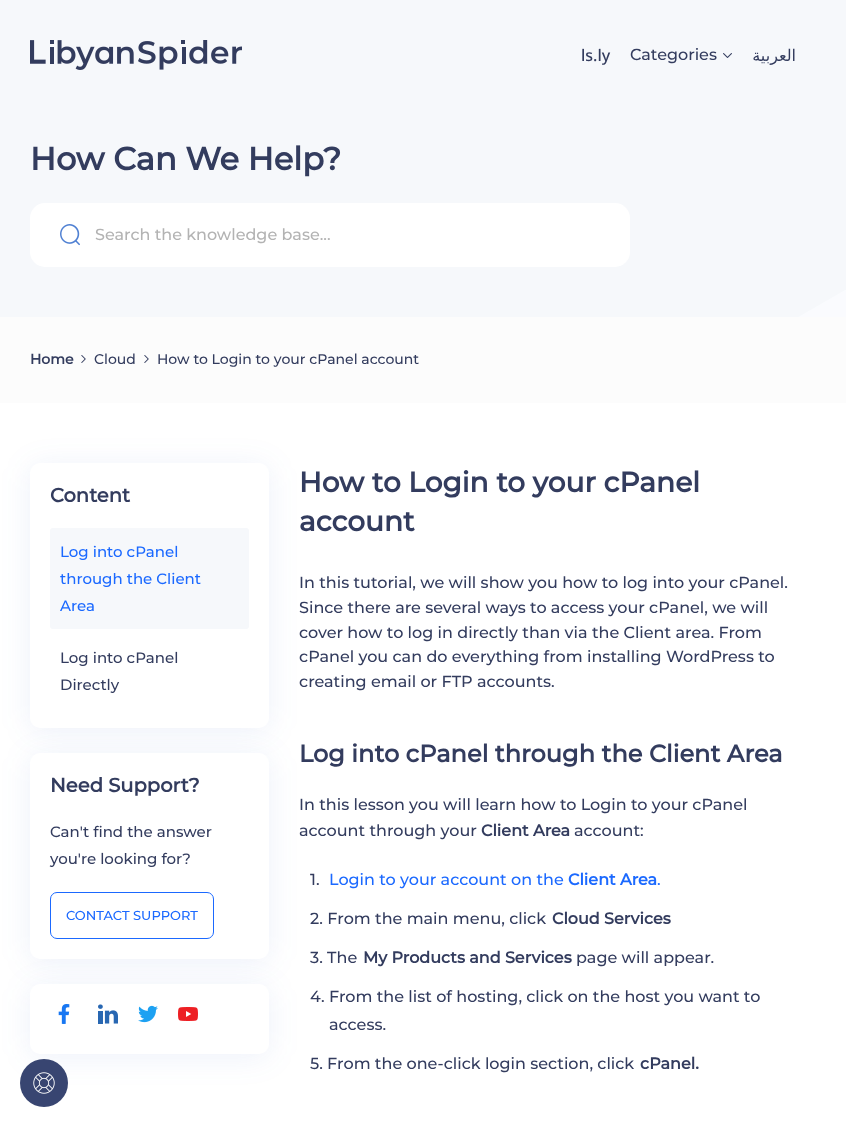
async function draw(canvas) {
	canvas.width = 846;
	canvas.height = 1127;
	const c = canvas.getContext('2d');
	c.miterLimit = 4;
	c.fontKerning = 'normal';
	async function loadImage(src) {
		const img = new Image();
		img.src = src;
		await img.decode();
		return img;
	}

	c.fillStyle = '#fff';
	c.fillRect(0, 0, 846, 1127);
	c.fillStyle = '#f6f8fb';
	c.fillRect(0, 0, 846, 317);
	c.drawImage(await loadImage('img1.png'), 798, 290, 48, 27);
	c.drawImage(await loadImage('img2.png'), 30, 40, 212, 30);
	c.font = '500 16px Noto Sans';
	c.fillStyle = '#333c5e';
	c.fillText('ls.ly', 581, 61);
	c.font = '100 16px Montserrat';
	c.fillText('Categories', 630, 60);
	c.drawImage(await loadImage('img3.png'), 723, 53, 9, 5);
	c.direction = 'rtl';
	c.font = '16px DejaVu Sans';
	c.fillText('العربية', 796, 61);
	c.direction = 'ltr';
	c.font = 'bold 32px Montserrat';
	c.fillText('How Can We Help?', 30, 170);
	c.fillStyle = '#fff';
	c.beginPath();
	c.roundRect(30, 203, 600, 64, 15);
	c.fill();
	c.drawImage(await loadImage('img4.png'), 60, 224, 20, 22);
	c.font = '100 16px Montserrat';
	c.fillStyle = '#b3b3b3';
	c.fillText('Search the knowledge base...', 95, 240);
	c.fillStyle = '#fcfcfc';
	c.fillRect(0, 317, 846, 86);
	c.font = 'bold 14px Montserrat';
	c.fillStyle = '#333c5e';
	c.fillText('Home', 30, 364);
	c.drawImage(await loadImage('img5.png'), 81, 355, 5, 8);
	c.font = '100 14px Montserrat';
	c.fillText('Cloud', 94, 364);
	c.drawImage(await loadImage('img5.png'), 144, 355, 5, 8);
	c.fillText('How to Login to your cPanel account', 157, 364);
	c.fillStyle = '#3566c817';
	c.filter = 'blur(15px)';
	c.beginPath();
	c.roundRect(30, 466, 239, 265, 10);
	c.fill();
	c.filter = 'none';
	c.fillStyle = '#fff';
	c.beginPath();
	c.roundRect(30, 463, 239, 265, 10);
	c.fill();
	c.font = 'bold 19.5px Montserrat';
	c.fillStyle = '#333c5e';
	c.fillText('Content', 50, 502);
	c.fillStyle = '#f6f8fb';
	c.beginPath();
	c.roundRect(50, 528, 199, 101, 3);
	c.fill();
	c.font = '100 15px Montserrat';
	c.fillStyle = '#1b69ff';
	for (const [text, x, y] of [
		['Log into cPanel', 60, 557],
		['through the Client', 60, 584],
		['Area', 60, 611],
	]) {
		c.fillText(text, x, y);
	}
	c.fillStyle = '#333c5e';
	c.fillText('Log into cPanel', 60, 663);
	c.fillText('Directly', 60, 690);
	c.fillStyle = '#3566c817';
	c.filter = 'blur(15px)';
	c.beginPath();
	c.roundRect(30, 756, 239, 206, 10);
	c.fill();
	c.filter = 'none';
	c.fillStyle = '#fff';
	c.beginPath();
	c.roundRect(30, 753, 239, 206, 10);
	c.fill();
	c.font = 'bold 19.5px Montserrat';
	c.fillStyle = '#333c5e';
	c.fillText('Need Support?', 50, 792);
	c.font = '100 15px Montserrat';
	c.fillText('Can\'t find the answer', 50, 837);
	c.fillText('you\'re looking for?', 50, 864);
	c.beginPath();
	c.roundRect(50.5, 892.5, 163, 46, 6.5);
	c.strokeStyle = '#1b69ff';
	c.stroke();
	c.font = '100 13px Montserrat';
	c.fillStyle = '#1b69ff';
	c.fillText('CONTACT SUPPORT', 66, 920);
	c.fillStyle = '#3566c817';
	c.filter = 'blur(15px)';
	c.beginPath();
	c.roundRect(30, 987, 239, 70, 10);
	c.fill();
	c.filter = 'none';
	c.fillStyle = '#fff';
	c.beginPath();
	c.roundRect(30, 984, 239, 70, 10);
	c.fill();
	c.drawImage(await loadImage('img6.png'), 58, 1004, 12, 20);
	c.drawImage(await loadImage('img7.png'), 98, 1004, 20, 20);
	c.drawImage(await loadImage('img8.png'), 138, 1005, 20, 18);
	c.drawImage(await loadImage('img9.png'), 178, 1007, 20, 14);
	c.font = 'bold 28px Montserrat';
	c.fillStyle = '#333c5e';
	c.fillText('How to Login to your cPanel', 299, 492);
	c.fillText('account', 299, 531);
	c.font = '100 16px Montserrat';
	for (const [text, x, y] of [
		['In this tutorial, we will show you how to log into your cPanel.', 299, 588],
		['Since there are several ways to access your cPanel, we will', 299, 613],
		['cover how to log in directly than via the Client area. From', 299, 638],
		['cPanel you can do everything from installing WordPress to', 299, 662],
		['creating email or FTP accounts.', 299, 687],
	]) {
		c.fillText(text, x, y);
	}
	c.font = 'bold 24px Montserrat';
	c.fillText('Log into cPanel through the Client Area', 299, 762);
	c.font = '100 16px Montserrat';
	c.fillText('In this lesson you will learn how to Login to your cPanel', 299, 810);
	c.fillText('account through your', 299, 836);
	c.font = 'bold 16px Montserrat';
	c.fillText('Client Area', 481, 836);
	c.font = '100 16px Montserrat';
	c.fillText('account:', 574, 836);
	c.fillText('1.', 310, 885);
	c.fillStyle = '#1b69ff';
	c.fillText('Login to your account on the', 329, 885);
	c.font = 'bold 16px Montserrat';
	c.fillText('Client Area', 568, 885);
	c.font = '100 16px Montserrat';
	c.fillText('.', 657, 885);
	c.fillStyle = '#333c5e';
	c.fillText('2. From the main menu, click', 310, 924);
	c.font = 'bold 16px Montserrat';
	c.fillText('Cloud Services', 552, 924);
	c.font = '100 16px Montserrat';
	c.fillText('3. The', 310, 963);
	c.font = 'bold 16px Montserrat';
	c.fillText('My Products and Services', 363, 963);
	c.font = '100 16px Montserrat';
	for (const [text, x, y] of [
		['page will appear.', 576, 963],
		['4. From the list of hosting, click on the host you want to', 310, 1002],
		['access.', 329, 1030],
		['5. From the one-click login section, click', 310, 1069],
	]) {
		c.fillText(text, x, y);
	}
	c.font = 'bold 16px Montserrat';
	c.fillText('cPanel.', 640, 1069);
	c.fillStyle = '#384571';
	c.beginPath();
	c.arc(44, 1083, 24, 0, 2 * Math.PI);
	c.fill();
	c.drawImage(await loadImage('img10.png'), 33, 1072, 22, 22);
}

draw(document.querySelector('canvas'));
